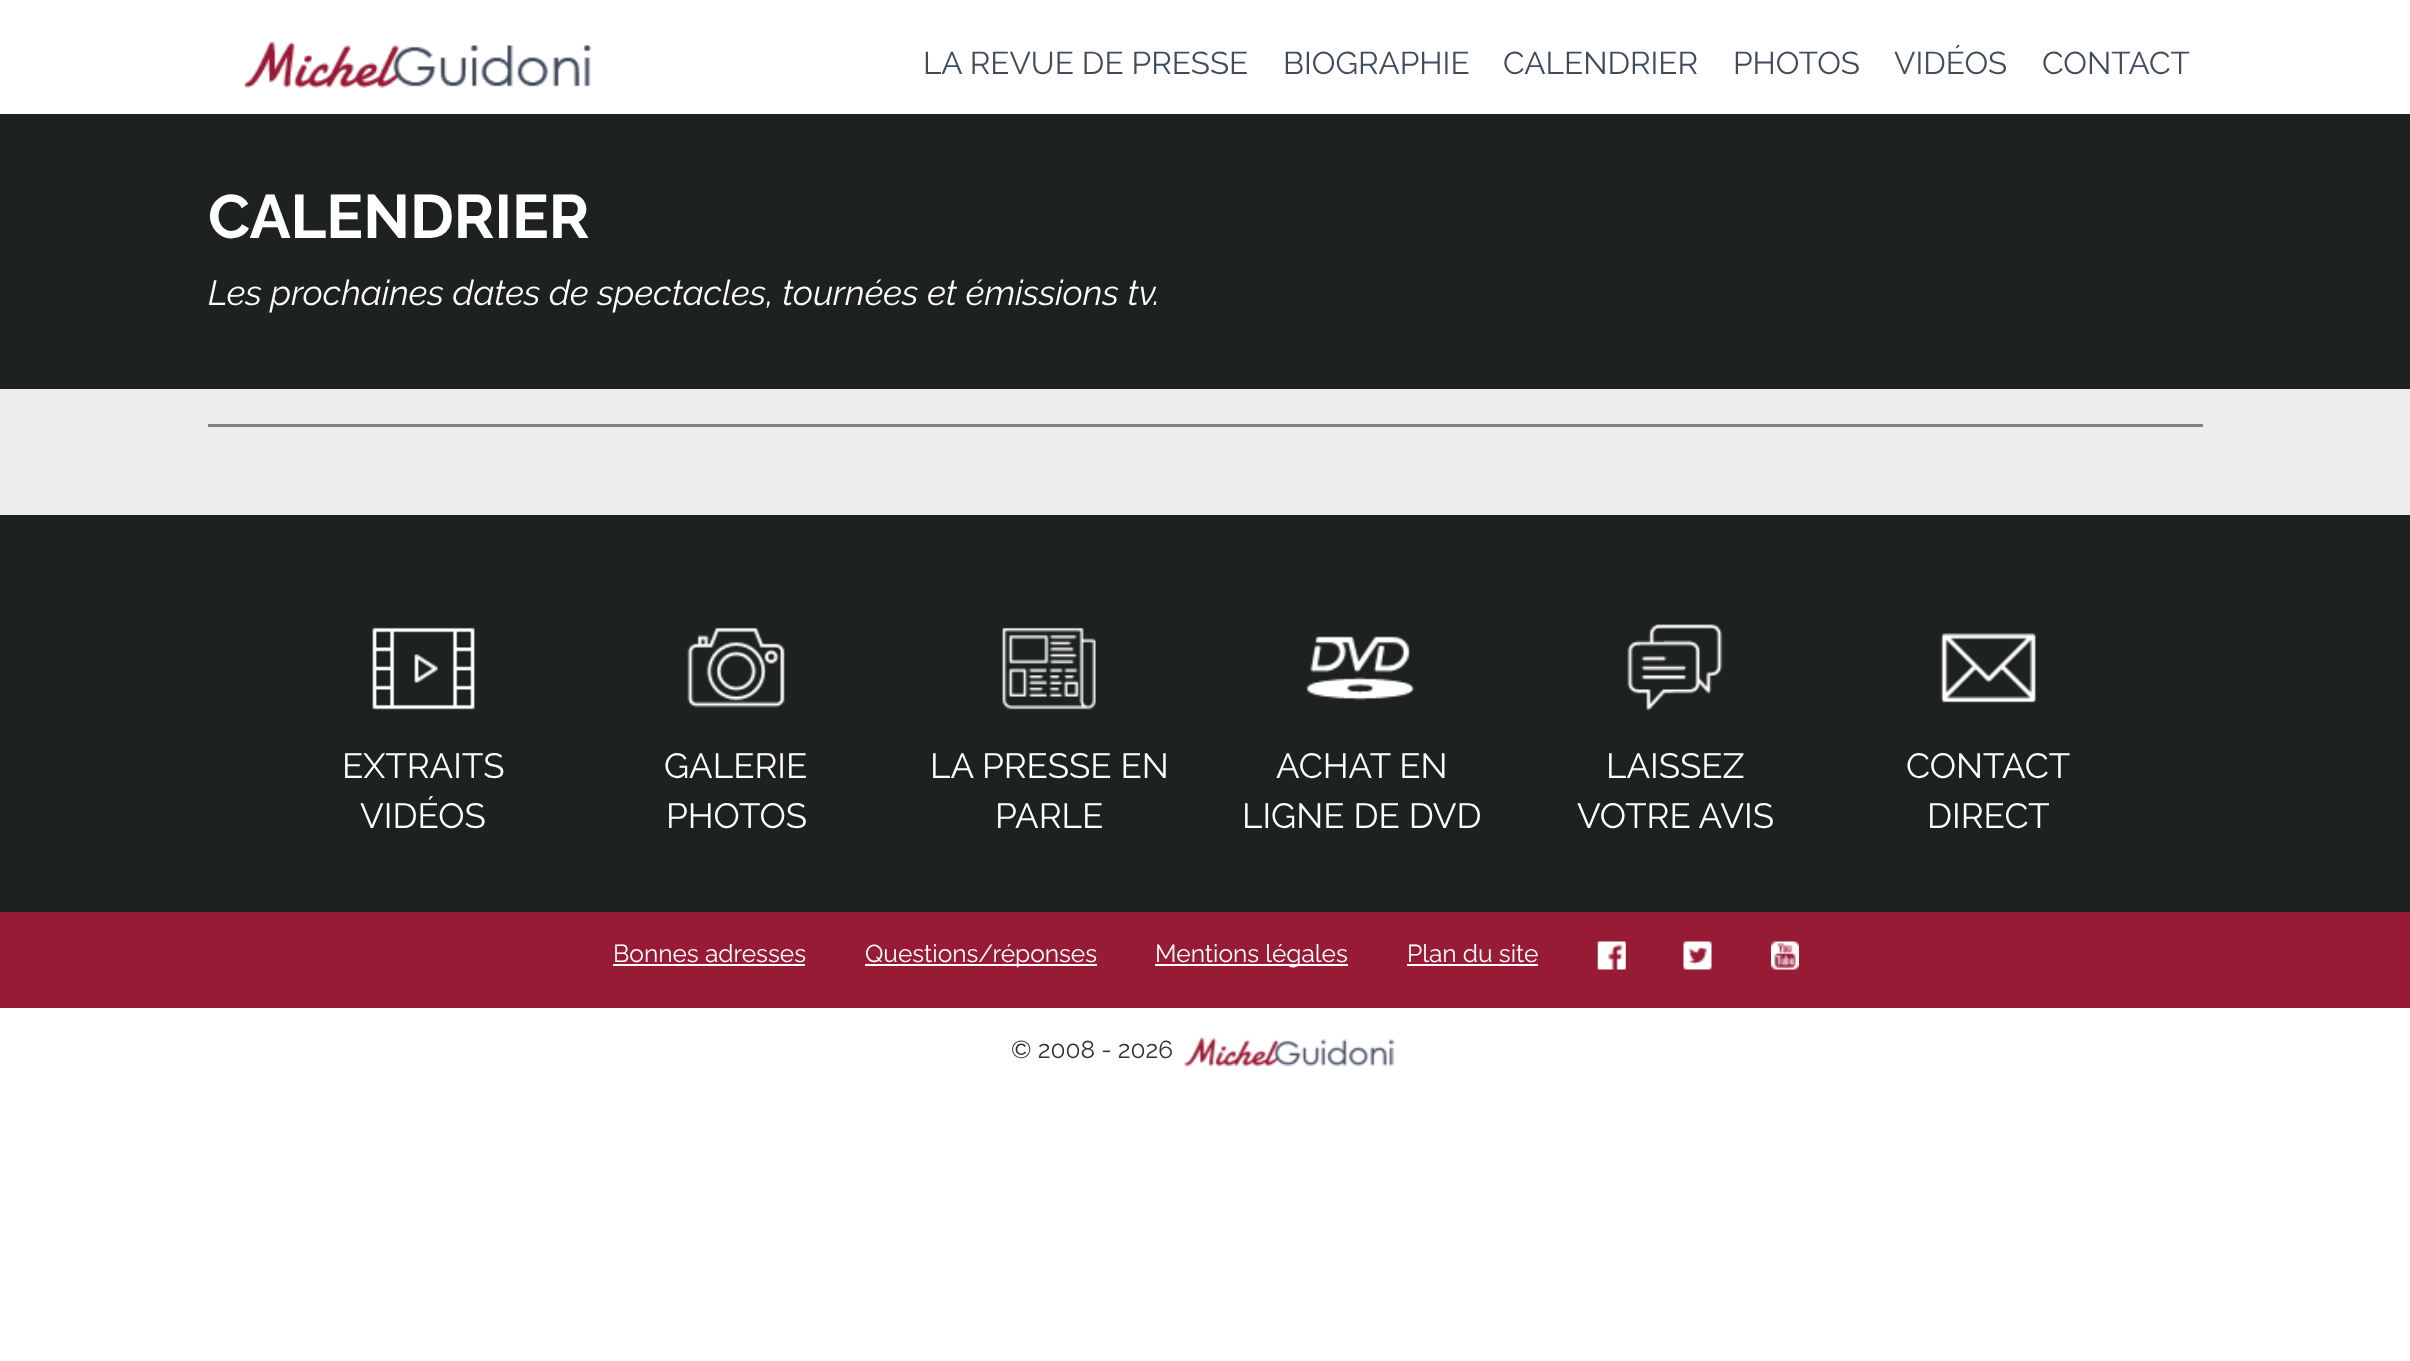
async function draw(canvas) {
	canvas.width = 2410;
	canvas.height = 1361;
	const c = canvas.getContext('2d');
	c.miterLimit = 4;
	c.fontKerning = 'normal';
	async function loadImage(src) {
		const img = new Image();
		img.src = src;
		await img.decode();
		return img;
	}

	c.fillStyle = '#fff';
	c.fillRect(0, 0, 2410, 1361);
	c.drawImage(await loadImage('img1.png'), 244, 41, 348, 47);
	c.font = '31.5px Raleway';
	c.fillStyle = '#414b5d';
	for (const [text, x, y] of [
		['LA REVUE DE PRESSE', 923, 74],
		['BIOGRAPHIE', 1283, 74],
		['CALENDRIER', 1503, 74],
		['PHOTOS', 1733, 74],
		['VIDÉOS', 1894, 74],
		['CONTACT', 2042, 74],
	]) {
		c.fillText(text, x, y);
	}
	c.fillStyle = '#1d211f';
	c.fillRect(0, 114, 2410, 275);
	c.font = 'bold 61.25px Raleway';
	c.fillStyle = '#fff';
	c.fillText('CALENDRIER', 208, 238);
	c.font = 'italic 35px Raleway';
	c.fillText('Les prochaines dates de spectacles, tournées et émissions tv.', 208, 305);
	for (const [x, y, w, h, color] of [
		[0, 389, 2410, 126, '#ededed'],
		[208, 424, 1995, 3, '#808080'],
		[0, 515, 2410, 397, '#1d211f'],
	]) {
		c.fillStyle = color;
		c.fillRect(x, y, w, h);
	}
	c.drawImage(await loadImage('img2.png'), 372, 627, 103, 83);
	c.font = '35px Raleway';
	c.fillStyle = '#fff';
	c.fillText('EXTRAITS', 342, 778);
	c.fillText('VIDÉOS', 360, 828);
	c.drawImage(await loadImage('img3.png'), 687, 627, 98, 81);
	c.fillText('GALERIE', 664, 778);
	c.fillText('PHOTOS', 666, 828);
	c.drawImage(await loadImage('img4.png'), 1002, 627, 94, 83);
	c.fillText('LA PRESSE EN', 930, 778);
	c.fillText('PARLE', 995, 828);
	c.drawImage(await loadImage('img5.png'), 1306, 636, 109, 65);
	c.fillText('ACHAT EN', 1276, 778);
	c.fillText('LIGNE DE DVD', 1242, 828);
	c.drawImage(await loadImage('img6.png'), 1627, 624, 96, 87);
	c.fillText('LAISSEZ', 1606, 778);
	c.fillText('VOTRE AVIS', 1577, 828);
	c.drawImage(await loadImage('img7.png'), 1940, 633, 96, 70);
	c.fillText('CONTACT', 1906, 778);
	c.fillText('DIRECT', 1927, 828);
	c.fillStyle = '#981b36';
	c.fillRect(0, 912, 2410, 96);
	c.font = '24.5px Raleway';
	c.fillStyle = '#fff';
	c.fillText('Bonnes adresses', 613, 962);
	c.fillRect(613, 964, 192, 2);
	c.fillRect(865, 964, 232, 2);
	c.fillText('Questions/réponses', 865, 962);
	c.fillRect(1155, 964, 193, 2);
	c.fillText('Mentions légales', 1155, 962);
	c.fillText('Plan du site', 1407, 962);
	c.fillRect(1407, 964, 131, 2);
	c.drawImage(await loadImage('img8.png'), 1597, 941, 29, 29);
	c.drawImage(await loadImage('img9.png'), 1683, 941, 29, 29);
	c.drawImage(await loadImage('img10.png'), 1771, 941, 28, 29);
	c.fillStyle = '#333';
	c.fillText('© 2008 - 2026', 1011, 1058);
	c.drawImage(await loadImage('img11.png'), 1184, 1037, 212, 30);
}

draw(document.querySelector('canvas'));
